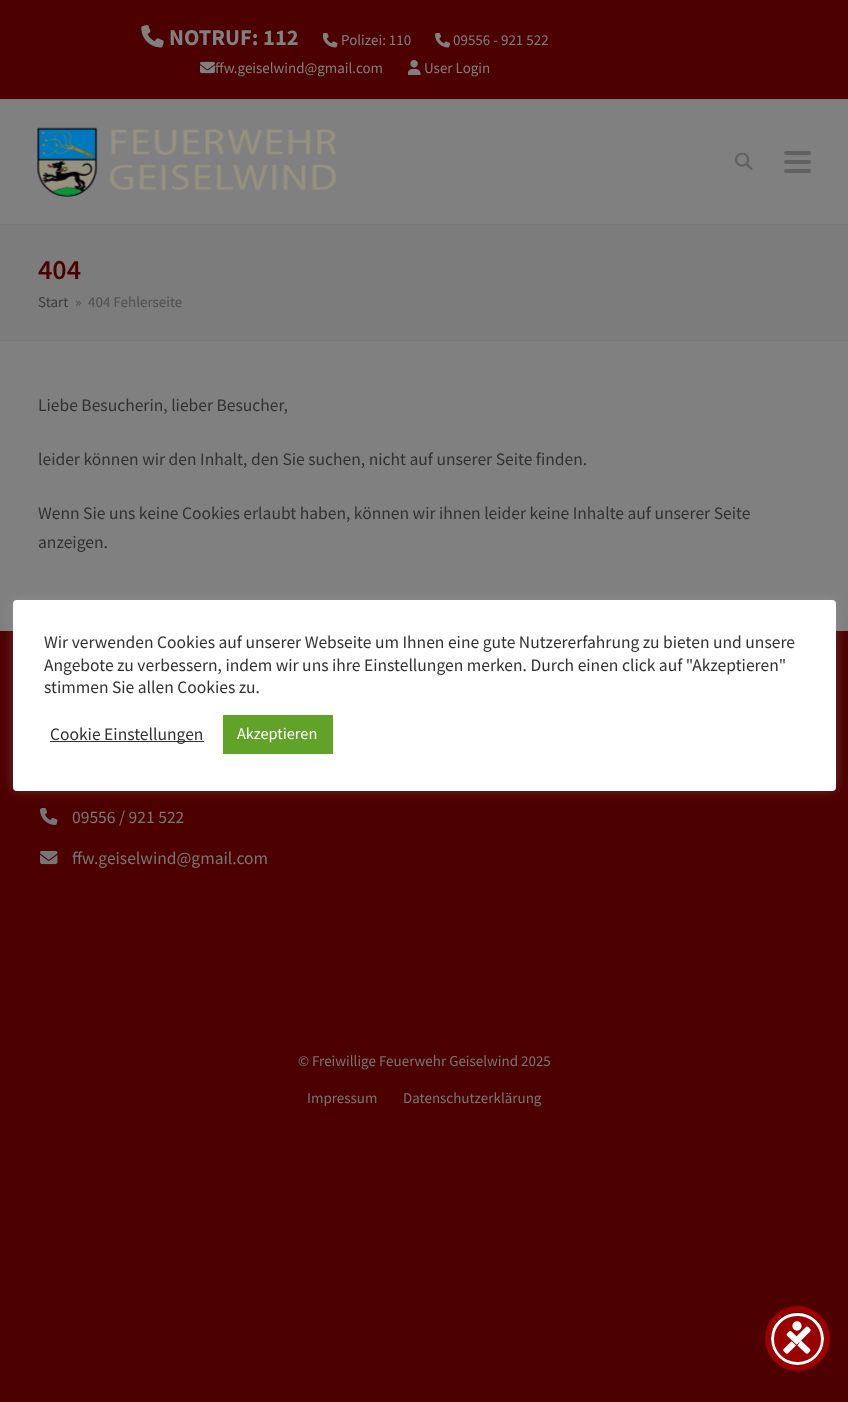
async function draw(canvas) {
	canvas.width = 848;
	canvas.height = 1402;
	const c = canvas.getContext('2d');
	c.miterLimit = 4;
	c.fontKerning = 'normal';
	async function loadImage(src) {
		const img = new Image();
		img.src = src;
		await img.decode();
		return img;
	}

	c.fillStyle = '#4d0000';
	c.fillRect(0, 0, 848, 1402);
	c.fillStyle = '#808080';
	c.fillRect(0, 99, 848, 532);
	c.drawImage(await loadImage('img1.png'), 141, 25, 23, 23);
	c.font = 'bold 22.5px Source Sans Pro';
	c.fillText('NOTRUF: 112', 169, 45);
	c.drawImage(await loadImage('img2.png'), 323, 33, 15, 15);
	c.font = '15px Source Sans Pro';
	c.fillText('Polizei: 110', 341, 45);
	c.drawImage(await loadImage('img3.png'), 435, 33, 15, 15);
	c.fillText('09556 - 921 522', 453, 45);
	c.drawImage(await loadImage('img4.png'), 200, 61, 15, 13);
	c.fillText('ffw.geiselwind@gmail.com', 215, 73);
	c.drawImage(await loadImage('img5.png'), 408, 60, 13, 15);
	c.fillText('User Login', 424, 73);
	c.drawImage(await loadImage('img6.png'), 37, 127, 300, 70);
	c.drawImage(await loadImage('img7.png'), 735, 153, 18, 17);
	c.fillStyle = '#616161';
	c.beginPath();
	c.roundRect(784, 160, 27, 4, 2);
	c.fill();
	c.beginPath();
	c.roundRect(784, 151, 27, 4, 2);
	c.fill();
	c.beginPath();
	c.roundRect(784, 169, 27, 4, 2);
	c.fill();
	for (const [x, y, w, h, color] of [
		[0, 225, 848, 115, '#7c7c7c'],
		[0, 224, 848, 1, '#777'],
		[0, 340, 848, 1, '#777'],
	]) {
		c.fillStyle = color;
		c.fillRect(x, y, w, h);
	}
	c.font = '600 28px Source Sans Pro';
	c.fillStyle = '#4d0000';
	c.fillText('404', 38, 279);
	c.font = '15px Source Sans Pro';
	c.fillStyle = '#3b3b3b';
	c.fillText('Start', 38, 307);
	c.fillStyle = '#4f4f4f';
	c.fillText('»', 75, 307);
	c.fillText('404 Fehlerseite', 88, 307);
	c.font = '17.5px Source Sans Pro';
	c.fillStyle = '#313131';
	for (const [text, x, y] of [
		['Liebe Besucherin, lieber Besucher,', 38, 411],
		['leider können wir den Inhalt, den Sie suchen, nicht auf unserer Seite finden.', 38, 465],
		['Wenn Sie uns keine Cookies erlaubt haben, können wir ihnen leider keine Inhalte auf unserer Seite', 38, 519],
		['anzeigen.', 38, 548],
	]) {
		c.fillText(text, x, y);
	}
	c.drawImage(await loadImage('img8.png'), 40, 808, 18, 17);
	c.fillStyle = '#777';
	c.fillText('09556 / 921 522', 72, 823);
	c.drawImage(await loadImage('img9.png'), 40, 850, 18, 15);
	c.fillText('ffw.geiselwind@gmail.com', 72, 864);
	c.font = '15px Source Sans Pro';
	for (const [text, x, y] of [
		['©', 298, 1066],
		['Freiwillige Feuerwehr Geiselwind', 312, 1066],
		['2025', 521, 1066],
		['Impressum', 307, 1103],
		['Datenschutzerklärung', 403, 1103],
	]) {
		c.fillText(text, x, y);
	}
	c.fillStyle = '#acabab4d';
	c.filter = 'blur(6px)';
	c.beginPath();
	c.roundRect(13, 599, 823, 191, 4);
	c.fill();
	c.filter = 'none';
	c.fillStyle = '#fff';
	c.beginPath();
	c.roundRect(13, 600, 823, 191, 4);
	c.fill();
	c.font = '17.5px Source Sans Pro';
	c.fillStyle = '#313131';
	for (const [text, x, y] of [
		['Wir verwenden Cookies auf unserer Webseite um Ihnen eine gute Nutzererfahrung zu bieten und unsere', 44, 648],
		['Angebote zu verbessern, indem wir uns ihre Einstellungen merken. Durch einen click auf "Akzeptieren"', 44, 671],
		['stimmen Sie allen Cookies zu.', 44, 693],
	]) {
		c.fillText(text, x, y);
	}
	c.fillStyle = '#333';
	c.fillRect(50, 741, 154, 1);
	c.fillStyle = '#313131';
	c.fillText('Cookie Einstellungen', 50, 740);
	c.fillStyle = '#61a229';
	c.fillRect(223, 715, 110, 39);
	c.font = '16.25px Source Sans Pro';
	c.fillStyle = '#fff';
	c.fillText('Akzeptieren', 237, 739);
	c.fillStyle = '#5d649433';
	c.filter = 'blur(2.5px)';
	c.beginPath();
	c.roundRect(771, 1315, 53, 53, 26.5);
	c.fill();
	c.filter = 'none';
	c.fillStyle = '#9a0000';
	c.beginPath();
	c.roundRect(772.5, 1314.5, 50, 49, 24.5);
	c.fill();
	c.strokeStyle = '#fff';
	c.lineWidth = 3;
	c.stroke();
	c.beginPath();
	c.arc(797.5, 1338.5, 29.5, 0, 2 * Math.PI);
	c.strokeStyle = '#9a0000';
	c.lineWidth = 6;
	c.stroke();
	c.drawImage(await loadImage('img10.png'), 783, 1321, 28, 33);
}

draw(document.querySelector('canvas'));
